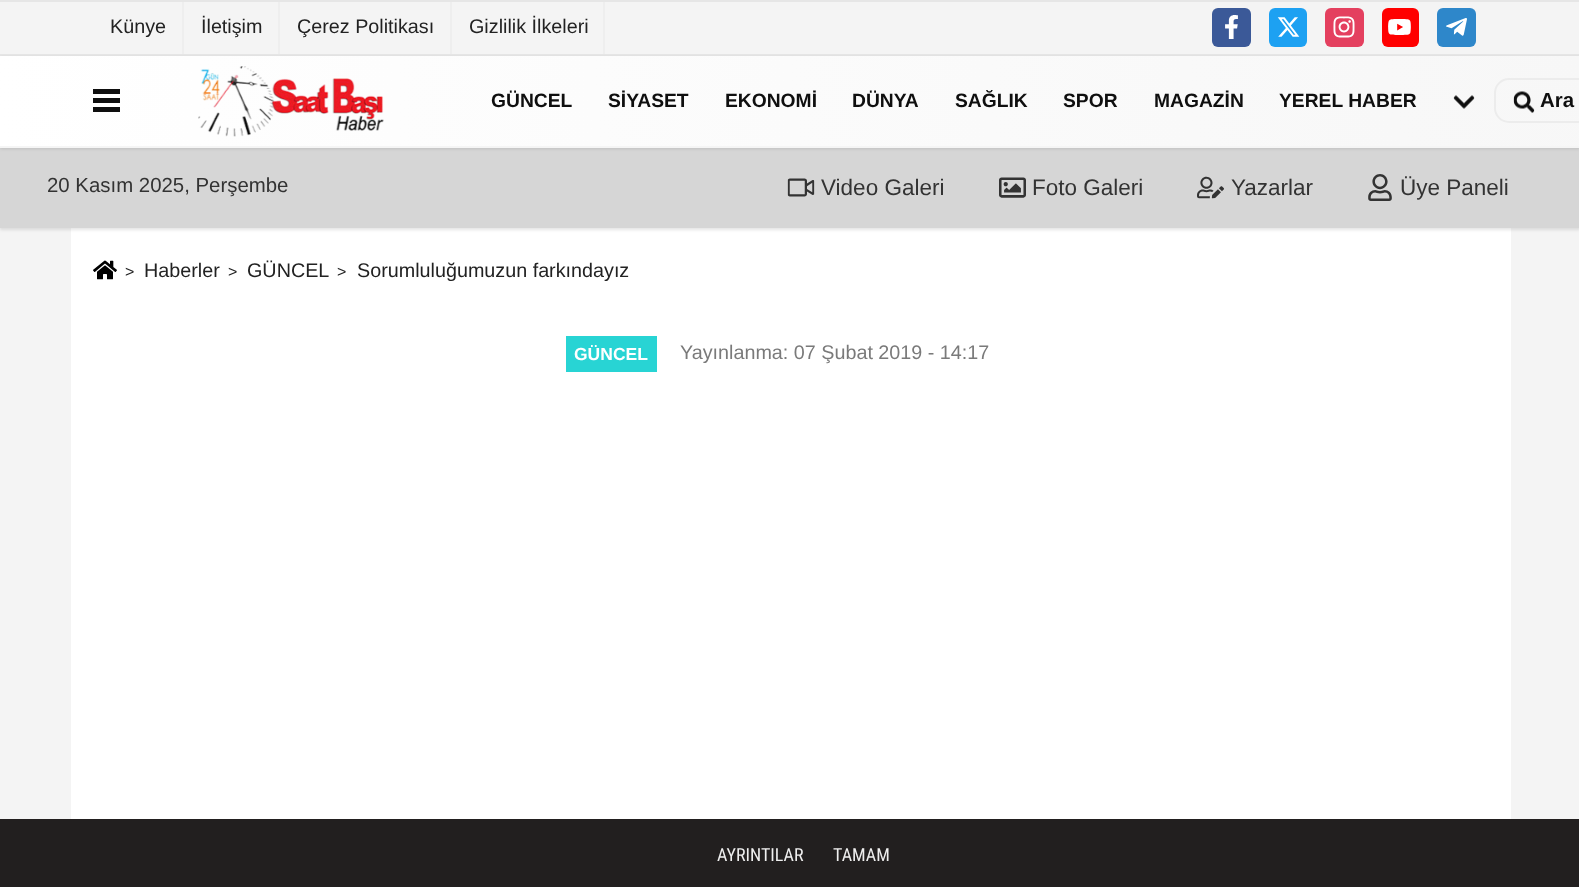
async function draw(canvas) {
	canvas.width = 1579;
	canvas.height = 887;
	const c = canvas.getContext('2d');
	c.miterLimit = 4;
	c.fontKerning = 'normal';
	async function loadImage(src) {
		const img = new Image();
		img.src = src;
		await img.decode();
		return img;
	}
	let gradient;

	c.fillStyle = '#f4f4f4';
	c.fillRect(0, 0, 1579, 887);
	for (const [x, y, w, h, color] of [
		[0, 819, 1579, 68, '#221f1f'],
		[0, 0, 1579, 2, '#e6e6e6'],
		[182, 2, 2, 52, '#eee'],
	]) {
		c.fillStyle = color;
		c.fillRect(x, y, w, h);
	}
	c.font = '19.75px Liberation Sans';
	c.fillStyle = '#222';
	c.fillText('Künye', 110, 33);
	c.fillStyle = '#eee';
	c.fillRect(278, 2, 2, 52);
	c.fillStyle = '#222';
	c.fillText('İletişim', 201, 33);
	c.fillStyle = '#eee';
	c.fillRect(450, 2, 2, 52);
	c.fillStyle = '#222';
	c.fillText('Çerez Politikası', 297, 33);
	c.fillStyle = '#eee';
	c.fillRect(603, 2, 2, 52);
	c.fillStyle = '#222';
	c.fillText('Gizlilik İlkeleri', 469, 33);
	c.fillStyle = '#3b5998';
	c.beginPath();
	c.roundRect(1212, 8, 39, 39, 6);
	c.fill();
	c.drawImage(await loadImage('img1.png'), 1225, 15, 13, 24);
	c.fillStyle = '#1da1f2';
	c.beginPath();
	c.roundRect(1269, 8, 38, 39, 6);
	c.fill();
	c.drawImage(await loadImage('img2.png'), 1277, 17, 23, 20);
	c.fillStyle = '#e4405f';
	c.beginPath();
	c.roundRect(1325, 8, 39, 39, 6);
	c.fill();
	c.drawImage(await loadImage('img3.png'), 1333, 16, 22, 22);
	c.fillStyle = '#f00';
	c.beginPath();
	c.roundRect(1382, 8, 37, 39, 6);
	c.fill();
	c.drawImage(await loadImage('img4.png'), 1388, 19, 23, 16);
	c.fillStyle = '#2e87ca';
	c.beginPath();
	c.roundRect(1437, 8, 39, 39, 6);
	c.fill();
	c.drawImage(await loadImage('img5.png'), 1446, 18, 21, 18);
	c.fillStyle = '#e6e6e6';
	c.fillRect(0, 54, 1579, 2);
	c.fillStyle = '#fff';
	c.fillRect(71, 228, 1440, 591);
	c.fillStyle = '#0000001a';
	c.filter = 'blur(1.5px)';
	c.beginPath();
	c.rect(0, 149, 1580, 81);
	c.fill();
	c.filter = 'none';
	c.fillStyle = '#d6d6d6';
	c.fillRect(0, 148, 1579, 80);
	c.fillStyle = '#0000001a';
	c.filter = 'blur(1.5px)';
	c.beginPath();
	c.rect(0, 57, 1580, 92);
	c.fill();
	c.filter = 'none';
	gradient = c.createRadialGradient(1580, 56, 0, 1580, 56, 1582);
	gradient.addColorStop(0, '#f7f7f7');
	gradient.addColorStop(1, '#fff');
	c.fillStyle = gradient;
	c.fillRect(0, 56, 1579, 90);
	for (const [x, y, w, h, color] of [
		[0, 146, 1579, 2, '#f5f5f5'],
		[93, 89, 27, 5, '#0f0f0f'],
		[93, 98, 27, 5, '#0f0f0f'],
		[93, 107, 27, 5, '#0f0f0f'],
	]) {
		c.fillStyle = color;
		c.fillRect(x, y, w, h);
	}
	c.drawImage(await loadImage('img6.png'), 198, 66, 186, 71);
	c.font = 'bold 19.25px Liberation Sans';
	for (const [text, x, y] of [
		['GÜNCEL', 491, 107],
		['SİYASET', 608, 107],
		['EKONOMİ', 725, 107],
		['DÜNYA', 852, 107],
		['SAĞLIK', 955, 107],
		['SPOR', 1063, 107],
		['MAGAZİN', 1154, 107],
		['YEREL HABER', 1279, 107],
	]) {
		c.fillText(text, x, y);
	}
	c.drawImage(await loadImage('img7.png'), 1453, 95, 22, 14);
	c.beginPath();
	c.roundRect(1495, 79, 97, 43, 14);
	c.strokeStyle = '#ececec';
	c.lineWidth = 2;
	c.stroke();
	c.drawImage(await loadImage('img8.png'), 1513, 91, 22, 22);
	c.font = 'bold 20.4px Liberation Sans';
	c.fillText('Ara', 1540, 107);
	c.font = '20.4px Liberation Sans';
	c.fillStyle = '#333';
	c.fillText('20 Kasım 2025, Perşembe', 47, 192);
	c.drawImage(await loadImage('img9.png'), 787, 178, 28, 19);
	c.font = '22.5px Liberation Sans';
	c.fillText('Video Galeri', 821, 195);
	c.drawImage(await loadImage('img10.png'), 999, 177, 27, 21);
	c.fillText('Foto Galeri', 1032, 195);
	c.drawImage(await loadImage('img11.png'), 1197, 176, 27, 23);
	c.fillText('Yazarlar', 1231, 195);
	c.drawImage(await loadImage('img12.png'), 1368, 174, 24, 27);
	c.fillText('Üye Paneli', 1400, 195);
	c.drawImage(await loadImage('img13.png'), 93, 260, 24, 20);
	c.font = '16px Liberation Sans';
	c.fillStyle = '#222';
	c.fillText('>', 125, 277);
	c.font = '19.75px Liberation Sans';
	c.fillText('Haberler', 144, 277);
	c.font = '16px Liberation Sans';
	c.fillText('>', 228, 277);
	c.font = '19.75px Liberation Sans';
	c.fillText('GÜNCEL', 247, 277);
	c.font = '16px Liberation Sans';
	c.fillText('>', 337, 277);
	c.font = '19.75px Liberation Sans';
	c.fillText('Sorumluluğumuzun farkındayız', 357, 277);
	c.fillStyle = '#28d4d4';
	c.fillRect(566, 336, 91, 36);
	c.font = 'bold 17.5px Liberation Sans';
	c.fillStyle = '#fff';
	c.fillText('GÜNCEL', 574, 360);
	c.font = '19.75px Liberation Sans';
	c.fillStyle = '#7a7a7a';
	c.fillText('Yayınlanma: 07 Şubat 2019 - 14:17', 680, 359);
	c.font = '18px Roboto Condensed';
	c.fillStyle = '#efefef';
	c.fillText('AYRINTILAR', 717, 861);
	c.fillText('TAMAM', 833, 861);
}

draw(document.querySelector('canvas'));
